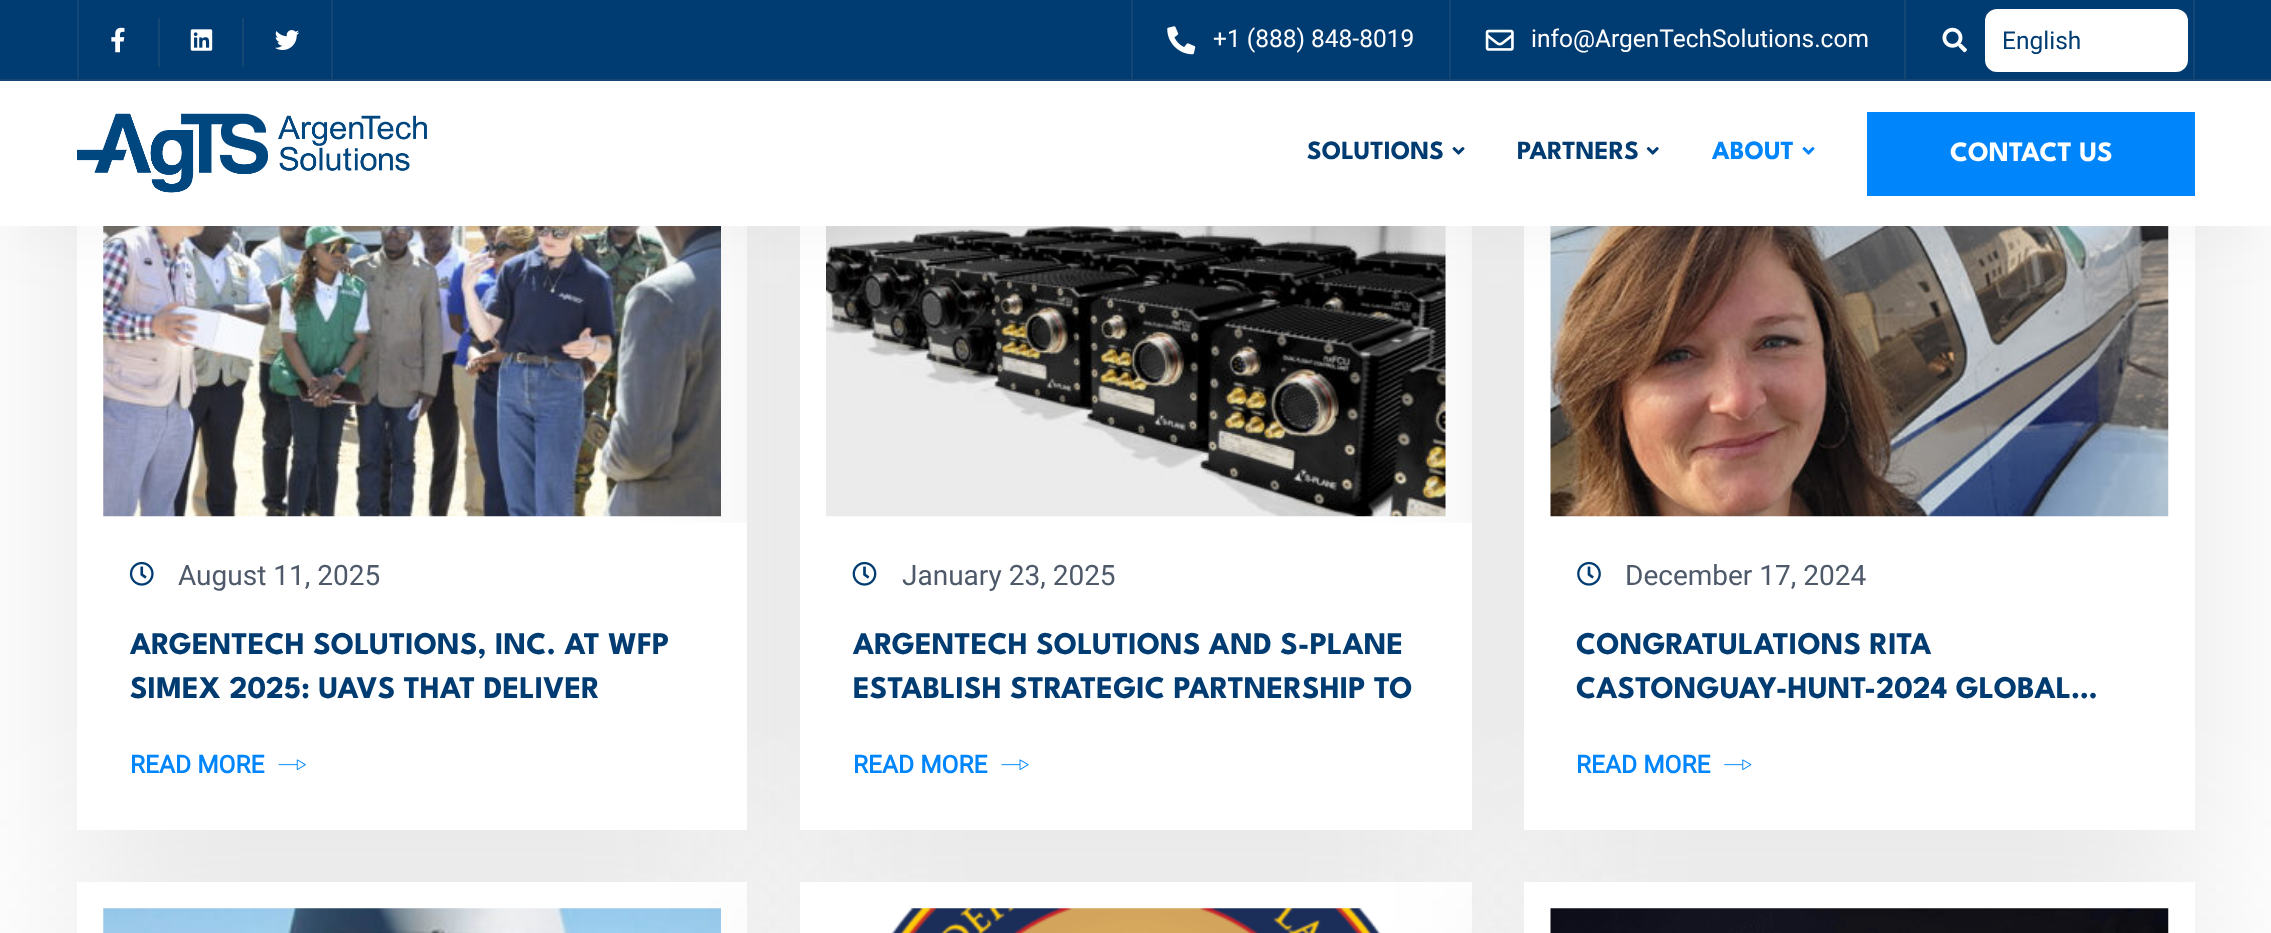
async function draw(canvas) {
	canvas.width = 2271;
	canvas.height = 933;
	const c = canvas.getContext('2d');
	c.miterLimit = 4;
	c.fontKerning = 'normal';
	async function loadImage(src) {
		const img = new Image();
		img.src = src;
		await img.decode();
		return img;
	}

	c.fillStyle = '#fff';
	c.fillRect(0, 0, 2271, 933);
	c.fillStyle = '#0000001a';
	c.filter = 'blur(86px)';
	c.beginPath();
	c.rect(77, 147, 670, 726);
	c.fill();
	c.filter = 'none';
	c.fillStyle = '#fff';
	c.fillRect(77, 226, 670, 297);
	c.drawImage(await loadImage('img11.png'), 103, 226, 618, 291);
	c.fillStyle = '#0000001a';
	c.filter = 'blur(86px)';
	c.beginPath();
	c.rect(800, 147, 672, 726);
	c.fill();
	c.filter = 'none';
	c.fillStyle = '#fff';
	c.fillRect(800, 226, 672, 297);
	c.drawImage(await loadImage('img14.png'), 826, 226, 620, 291);
	c.fillStyle = '#0000001a';
	c.filter = 'blur(86px)';
	c.beginPath();
	c.rect(1524, 147, 671, 726);
	c.fill();
	c.filter = 'none';
	c.fillStyle = '#fff';
	c.fillRect(1524, 226, 671, 297);
	c.drawImage(await loadImage('img17.png'), 1550, 226, 619, 291);
	c.fillStyle = '#0f0f0f0d';
	c.filter = 'blur(35px)';
	c.beginPath();
	c.rect(0, 4, 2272, 225);
	c.fill();
	c.filter = 'none';
	for (const [x, y, w, h, color] of [
		[0, 0, 2271, 79, '#003c71'],
		[0, 79, 2271, 2, '#144774'],
		[331, 0, 2, 79, '#144774'],
		[77, 0, 2, 79, '#144774'],
		[158, 18, 2, 49, '#144774'],
	]) {
		c.fillStyle = color;
		c.fillRect(x, y, w, h);
	}
	c.drawImage(await loadImage('img1.png'), 111, 27, 14, 26);
	c.fillRect(242, 18, 2, 49);
	c.drawImage(await loadImage('img2.png'), 190, 29, 23, 22);
	c.drawImage(await loadImage('img3.png'), 275, 30, 25, 20);
	c.fillRect(1131, 0, 2, 79);
	c.fillRect(1449, 0, 2, 79);
	c.drawImage(await loadImage('img4.png'), 1167, 26, 29, 29);
	c.font = '24.5px Roboto';
	c.fillStyle = '#fff';
	c.fillText('+1 (888) 848-8019', 1213, 47);
	c.drawImage(await loadImage('img5.png'), 1485, 29, 29, 22);
	c.fillText('info@ArgenTechSolutions.com', 1531, 47);
	c.fillStyle = '#144774';
	c.fillRect(2193, 0, 2, 79);
	c.fillRect(1904, 0, 2, 79);
	c.drawImage(await loadImage('img6.png'), 1942, 27, 25, 26);
	c.fillStyle = '#fff';
	c.beginPath();
	c.roundRect(1985, 9, 203, 63, 12);
	c.fill();
	c.fillStyle = '#003c71';
	c.fillText('English', 2002, 49);
	c.fillStyle = '#fff';
	c.fillRect(0, 81, 2271, 145);
	c.drawImage(await loadImage('img7.png'), 77, 113, 350, 80);
	c.font = 'bold 26.25px League Spartan';
	c.fillStyle = '#003c71';
	c.fillText('SOLUTIONS', 1307, 159);
	c.drawImage(await loadImage('img8.png'), 1452, 147, 13, 8);
	c.fillText('PARTNERS', 1517, 159);
	c.drawImage(await loadImage('img9.png'), 1646, 147, 13, 8);
	c.fillStyle = '#0085fb';
	c.fillText('ABOUT', 1712, 159);
	c.drawImage(await loadImage('img10.png'), 1802, 147, 13, 8);
	c.fillRect(1867, 112, 328, 84);
	c.font = 'bold 28px League Spartan';
	c.fillStyle = '#fff';
	c.fillText('CONTACT US', 1950, 161);
	c.fillStyle = '#0000001a';
	c.filter = 'blur(86px)';
	c.beginPath();
	c.rect(77, 926, 670, 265);
	c.fill();
	c.filter = 'none';
	c.fillStyle = '#fff';
	c.fillRect(77, 882, 670, 51);
	c.drawImage(await loadImage('img20.png'), 103, 908, 618, 25);
	c.fillStyle = '#0000001a';
	c.filter = 'blur(86px)';
	c.beginPath();
	c.rect(800, 926, 672, 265);
	c.fill();
	c.filter = 'none';
	c.fillStyle = '#fff';
	c.fillRect(77, 523, 670, 307);
	c.drawImage(await loadImage('img12.png'), 129, 561, 25, 25);
	c.font = '28px Roboto';
	c.fillStyle = '#4e5969';
	c.fillText('August 11, 2025', 178, 585);
	c.font = 'bold 31.5px League Spartan';
	c.fillStyle = '#003c71';
	c.fillText('ARGENTECH SOLUTIONS, INC. AT WFP', 130, 654);
	c.fillText('SIMEX 2025: UAVS THAT DELIVER', 130, 698);
	c.font = 'bold 24.5px Roboto';
	c.fillStyle = '#0085fb';
	c.fillText('READ MORE', 130, 773);
	c.drawImage(await loadImage('img13.png'), 278, 759, 28, 11);
	c.fillStyle = '#fff';
	c.fillRect(800, 882, 672, 51);
	c.drawImage(await loadImage('img21.png'), 891, 908, 490, 25);
	c.fillStyle = '#0000001a';
	c.filter = 'blur(86px)';
	c.beginPath();
	c.rect(1524, 926, 671, 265);
	c.fill();
	c.filter = 'none';
	c.fillStyle = '#fff';
	c.fillRect(800, 523, 672, 307);
	c.drawImage(await loadImage('img15.png'), 852, 561, 25, 25);
	c.font = '28px Roboto';
	c.fillStyle = '#4e5969';
	c.fillText('January 23, 2025', 902, 585);
	c.font = 'bold 31.5px League Spartan';
	c.fillStyle = '#003c71';
	c.fillText('ARGENTECH SOLUTIONS AND S-PLANE', 853, 654);
	c.fillText('ESTABLISH STRATEGIC PARTNERSHIP TO', 853, 698);
	c.font = 'bold 24.5px Roboto';
	c.fillStyle = '#0085fb';
	c.fillText('READ MORE', 853, 773);
	c.drawImage(await loadImage('img16.png'), 1001, 759, 28, 11);
	c.fillStyle = '#fff';
	c.fillRect(1524, 523, 671, 307);
	c.drawImage(await loadImage('img18.png'), 1577, 561, 24, 25);
	c.font = '28px Roboto';
	c.fillStyle = '#4e5969';
	c.fillText('December 17, 2024', 1625, 585);
	c.font = 'bold 31.5px League Spartan';
	c.fillStyle = '#003c71';
	c.fillText('CONGRATULATIONS RITA', 1576, 654);
	c.fillText('CASTONGUAY-HUNT-2024 GLOBAL…', 1576, 698);
	c.font = 'bold 24.5px Roboto';
	c.fillStyle = '#0085fb';
	c.fillText('READ MORE', 1576, 773);
	c.drawImage(await loadImage('img19.png'), 1724, 759, 28, 11);
	c.fillStyle = '#fff';
	c.fillRect(1524, 882, 671, 51);
	c.drawImage(await loadImage('img22.png'), 1550, 908, 619, 25);
}

draw(document.querySelector('canvas'));
